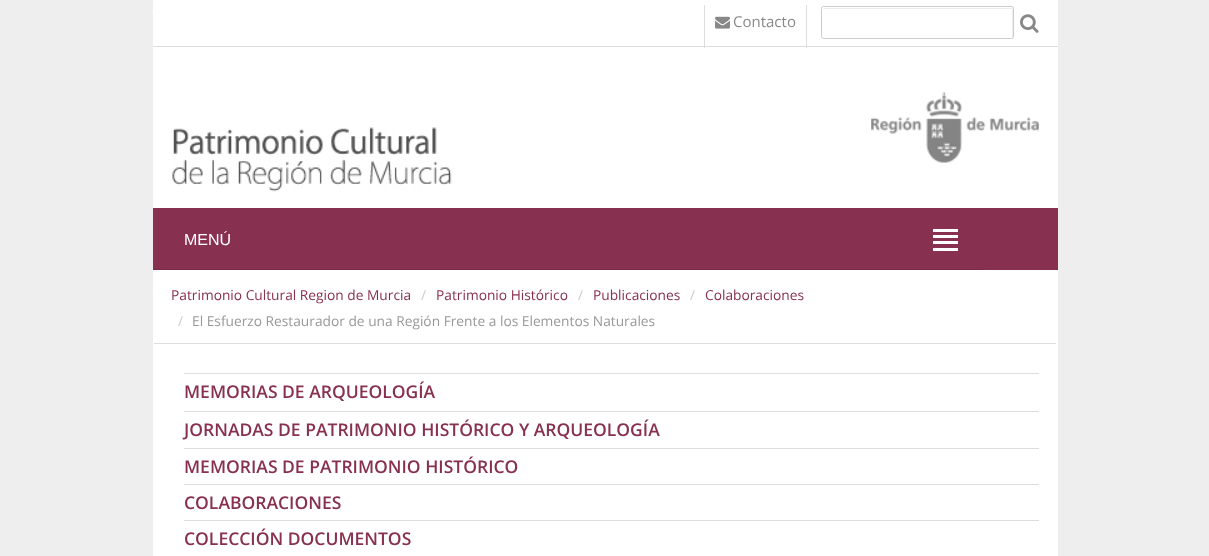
async function draw(canvas) {
	canvas.width = 1209;
	canvas.height = 556;
	const c = canvas.getContext('2d');
	c.miterLimit = 4;
	c.fontKerning = 'normal';
	async function loadImage(src) {
		const img = new Image();
		img.src = src;
		await img.decode();
		return img;
	}

	c.fillStyle = '#eee';
	c.fillRect(0, 0, 1209, 556);
	c.fillStyle = '#fff';
	c.fillRect(153, 0, 905, 208);
	c.fillStyle = '#ddd';
	c.fillRect(153, 46, 905, 1);
	c.drawImage(await loadImage('img1.png'), 152, 9, 1, 4);
	c.fillRect(806, 5, 1, 43);
	c.fillRect(704, 5, 1, 43);
	c.drawImage(await loadImage('img2.png'), 715, 16, 15, 13);
	c.font = '15px Open Sans';
	c.fillStyle = '#888';
	c.fillText('Contacto', 733, 27);
	c.fillStyle = '#ececec';
	c.beginPath();
	c.moveTo(824, 9);
	c.lineTo(1011, 9);
	c.bezierCurveTo(1012, 9, 1012, 9, 1012, 10);
	c.lineTo(1012, 38);
	c.lineTo(1013, 37);
	c.lineTo(1013, 9);
	c.lineTo(1012, 8);
	c.lineTo(824, 8);
	c.lineTo(823, 9);
	c.closePath();
	c.fill();
	c.beginPath();
	c.roundRect(821.5, 6.5, 192, 32, 2);
	c.strokeStyle = '#ccc';
	c.stroke();
	c.drawImage(await loadImage('img3.png'), 1020, 14, 19, 19);
	c.drawImage(await loadImage('img4.png'), 172, 127, 280, 65);
	c.drawImage(await loadImage('img5.png'), 871, 92, 168, 71);
	for (const [x, y, w, h, color] of [
		[153, 270, 905, 286, '#fff'],
		[153, 208, 905, 62, '#88304f'],
		[153, 269, 830, 1, '#7a2b47'],
	]) {
		c.fillStyle = color;
		c.fillRect(x, y, w, h);
	}
	c.font = '16px Liberation Sans';
	c.fillStyle = '#fff';
	c.fillText('MENÚ', 184, 245);
	for (const [x, y, w, h, color] of [
		[933, 229, 25, 3, '#fff'],
		[933, 235, 25, 3, '#fff'],
		[933, 241, 25, 3, '#fff'],
		[933, 248, 25, 3, '#fff'],
		[154, 343, 902, 1, '#ddd'],
	]) {
		c.fillStyle = color;
		c.fillRect(x, y, w, h);
	}
	c.font = '13.75px Open Sans';
	c.fillStyle = '#88304f';
	c.fillText('Patrimonio Cultural Region de Murcia', 171, 300);
	c.fillStyle = '#ccc';
	c.fillText('/', 421, 300);
	c.fillStyle = '#88304f';
	c.fillText('Patrimonio Histórico', 436, 300);
	c.fillStyle = '#ccc';
	c.fillText('/', 578, 300);
	c.fillStyle = '#88304f';
	c.fillText('Publicaciones', 593, 300);
	c.fillStyle = '#ccc';
	c.fillText('/', 690, 300);
	c.fillStyle = '#88304f';
	c.fillText('Colaboraciones', 705, 300);
	c.fillStyle = '#ccc';
	c.fillText('/', 178, 326);
	c.fillStyle = '#999';
	c.fillText('El Esfuerzo Restaurador de una Región Frente a los Elementos Naturales', 192, 326);
	c.fillStyle = '#ddd';
	c.fillRect(184, 373, 855, 1);
	c.font = '600 17.5px Open Sans';
	c.fillStyle = '#88304f';
	c.fillText('MEMORIAS DE ARQUEOLOGÍA', 184, 398);
	c.fillStyle = '#ddd';
	c.fillRect(184, 411, 855, 1);
	c.fillStyle = '#88304f';
	c.fillText('JORNADAS DE PATRIMONIO HISTÓRICO Y ARQUEOLOGÍA', 184, 436);
	c.fillStyle = '#ddd';
	c.fillRect(184, 448, 855, 1);
	c.fillStyle = '#88304f';
	c.fillText('MEMORIAS DE PATRIMONIO HISTÓRICO', 184, 473);
	c.fillStyle = '#ddd';
	c.fillRect(184, 484, 855, 1);
	c.fillStyle = '#88304f';
	c.fillText('COLABORACIONES', 184, 509);
	c.fillStyle = '#ddd';
	c.fillRect(184, 520, 855, 1);
	c.fillStyle = '#88304f';
	c.fillText('COLECCIÓN DOCUMENTOS', 184, 545);
}

draw(document.querySelector('canvas'));
